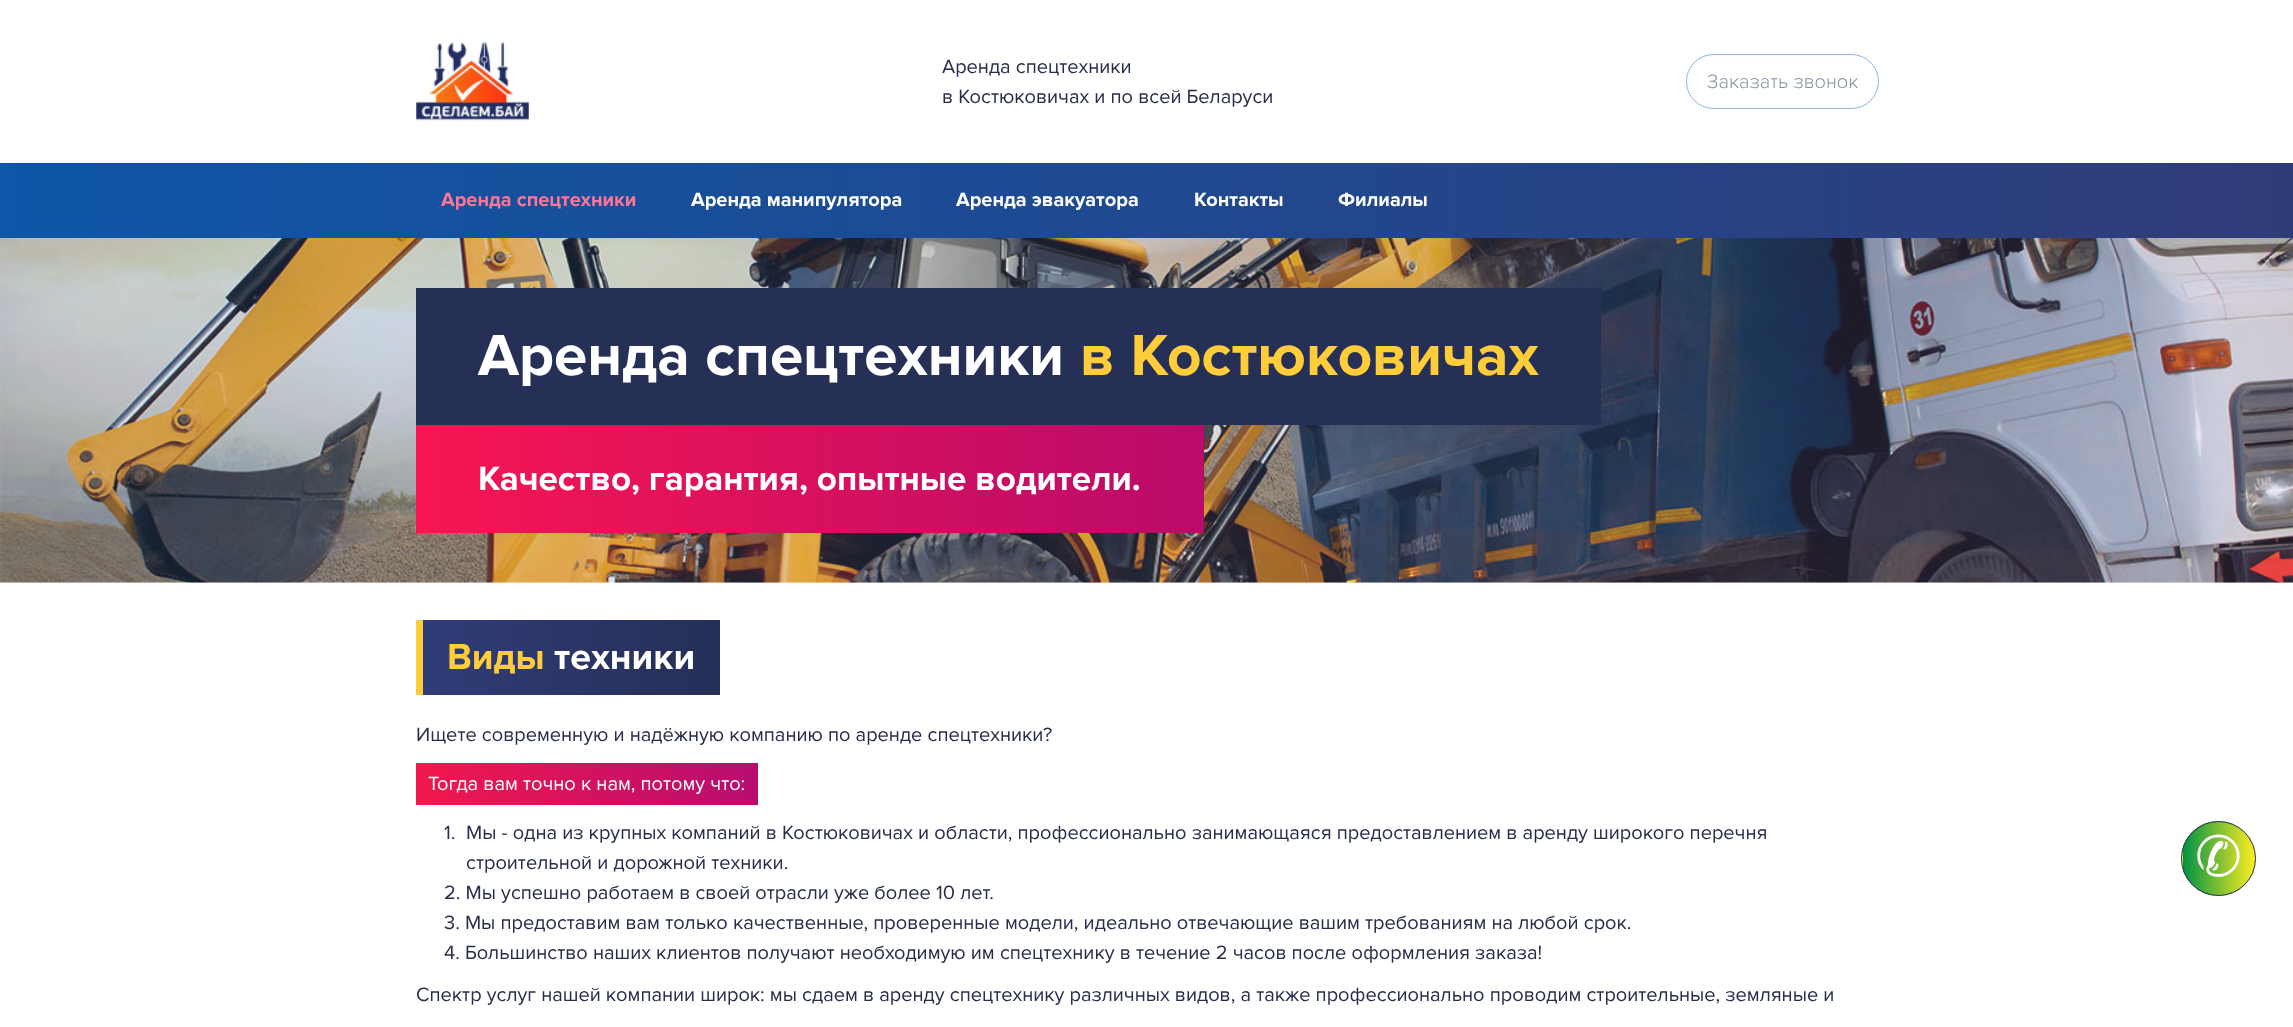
async function draw(canvas) {
	canvas.width = 2293;
	canvas.height = 1027;
	const c = canvas.getContext('2d');
	c.miterLimit = 4;
	c.fontKerning = 'normal';
	async function loadImage(src) {
		const img = new Image();
		img.src = src;
		await img.decode();
		return img;
	}
	let gradient;

	c.fillStyle = '#fff';
	c.fillRect(0, 0, 2293, 1027);
	c.drawImage(await loadImage('img1.png'), 416, 42, 113, 79);
	c.font = '20px Proxima Nova';
	c.fillStyle = '#282d4b';
	c.fillText('Аренда спецтехники', 942, 73);
	c.fillText('в Костюковичах и по всей Беларуси', 942, 103);
	c.beginPath();
	c.roundRect(1686.5, 54.5, 192, 54, 27);
	c.strokeStyle = '#8fb6e1';
	c.stroke();
	c.font = '300 20px Proxima Nova';
	c.fillStyle = '#8692a2';
	c.fillText('Заказать звонок', 1707, 88);
	gradient = c.createLinearGradient(0, 200, 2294, 200);
	gradient.addColorStop(0, '#0e56a8');
	gradient.addColorStop(1, '#303c78');
	c.fillStyle = gradient;
	c.fillRect(0, 163, 2293, 75);
	c.font = 'bold 20px Proxima Nova';
	c.fillStyle = '#ff7597';
	c.fillText('Аренда спецтехники', 441, 206);
	c.fillStyle = '#fff';
	for (const [text, x, y] of [
		['Аренда манипулятора', 691, 206],
		['Аренда эвакуатора', 956, 206],
		['Контакты', 1194, 206],
		['Филиалы', 1338, 206],
	]) {
		c.fillText(text, x, y);
	}
	c.drawImage(await loadImage('img2.png'), 0, 238, 2293, 345);
	c.fillStyle = '#262f56';
	c.fillRect(416, 288, 1185, 137);
	c.font = 'bold 60px Proxima Nova';
	c.fillStyle = '#fff';
	c.fillText('Аренда спецтехники', 478, 375);
	c.fillStyle = '#ffcc3a';
	c.fillText('в Костюковичах', 1080, 375);
	gradient = c.createLinearGradient(416, 479, 1204, 479);
	gradient.addColorStop(0, '#f61652');
	gradient.addColorStop(1, '#ba0b6a');
	c.fillStyle = gradient;
	c.fillRect(416, 425, 788, 108);
	c.font = 'bold 35px Proxima Nova';
	c.fillStyle = '#fff';
	c.fillText('Качество, гарантия, опытные водители.', 478, 490);
	gradient = c.createLinearGradient(423, 658, 720, 658);
	gradient.addColorStop(0, '#303c78');
	gradient.addColorStop(1, '#262f56');
	c.fillStyle = gradient;
	c.fillRect(423, 620, 297, 75);
	c.fillStyle = '#ffcc3a';
	c.fillRect(416, 620, 7, 75);
	c.font = 'bold 37.5px Proxima Nova';
	c.fillText('Виды', 447, 669);
	c.fillStyle = '#fff';
	c.fillText('техники', 554, 669);
	c.font = '20px Proxima Nova';
	c.fillStyle = '#282d4b';
	c.fillText('Ищете современную и надёжную компанию по аренде спецтехники?', 416, 741);
	gradient = c.createLinearGradient(416, 784, 758, 784);
	gradient.addColorStop(0, '#f1184d');
	gradient.addColorStop(1, '#b70d70');
	c.fillStyle = gradient;
	c.fillRect(416, 763, 342, 42);
	c.fillStyle = '#fff';
	c.fillText('Тогда вам точно к нам, потому что:', 428, 790);
	c.fillStyle = '#282d4b';
	for (const [text, x, y] of [
		['1.', 444, 839],
		['Мы - одна из крупных компаний в Костюковичах и области, профессионально занимающаяся предоставлением в аренду широкого перечня', 466, 839],
		['строительной и дорожной техники.', 466, 869],
		['2. Мы успешно работаем в своей отрасли уже более 10 лет.', 444, 899],
		['3. Мы предоставим вам только качественные, проверенные модели, идеально отвечающие вашим требованиям на любой срок.', 444, 929],
		['4. Большинство наших клиентов получают необходимую им спецтехнику в течение 2 часов после оформления заказа!', 444, 959],
		['Спектр услуг нашей компании широк: мы сдаем в аренду спецтехнику различных видов, а также профессионально проводим строительные, земляные и', 416, 1001],
	]) {
		c.fillText(text, x, y);
	}
	c.save();
	c.beginPath();
	c.roundRect(2181, 821, 75, 75, 37.5);
	c.clip();
	gradient = c.createLinearGradient(2110, 859, 2183, 859);
	gradient.addColorStop(0, '#009245');
	gradient.addColorStop(1, '#fcee21');
	c.fillStyle = gradient;
	c.fillRect(2181, 846, 2, 25);
	gradient = c.createLinearGradient(2183, 859, 2255, 859);
	gradient.addColorStop(0, '#009245');
	gradient.addColorStop(1, '#fcee21');
	c.fillStyle = gradient;
	c.fillRect(2183, 821, 72, 75);
	c.restore();
	c.beginPath();
	c.arc(2218.5, 858.5, 37, 0, 2 * Math.PI);
	c.strokeStyle = '#262f56';
	c.stroke();
	c.font = '56px DejaVu Sans';
	c.fillStyle = '#fff';
	c.fillText('✆', 2195, 876);
}

draw(document.querySelector('canvas'));
